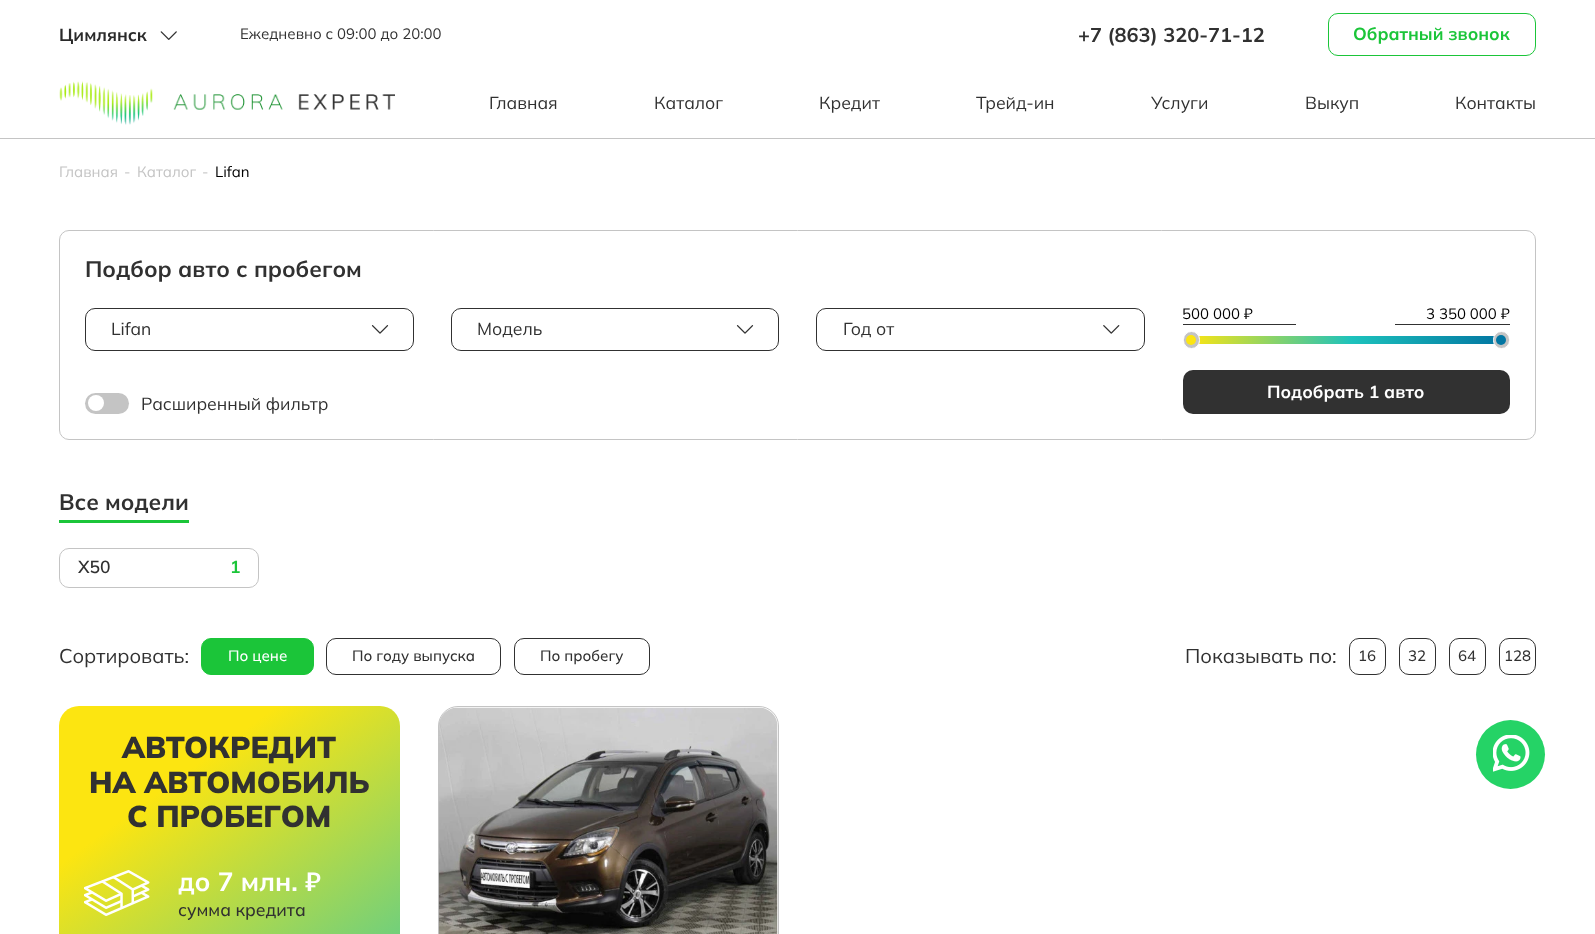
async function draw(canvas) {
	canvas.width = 1595;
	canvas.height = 934;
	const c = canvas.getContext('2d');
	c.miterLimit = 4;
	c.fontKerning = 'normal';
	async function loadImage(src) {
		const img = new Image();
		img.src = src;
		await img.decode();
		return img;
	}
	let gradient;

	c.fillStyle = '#fff';
	c.fillRect(0, 0, 1595, 934);
	c.fillStyle = '#c4c4c4';
	c.fillRect(0, 138, 1595, 1);
	c.drawImage(await loadImage('img1.png'), 160, 31, 17, 9);
	c.font = 'bold 17.5px Mulish';
	c.fillStyle = '#2a2a2a';
	c.fillText('Цимлянск', 59, 41);
	c.font = '15px Mulish';
	c.fillStyle = '#313131';
	c.fillText('Ежедневно с 09:00 до 20:00', 240, 39);
	c.font = 'bold 20px Mulish';
	c.fillText('+7 (863) 320-71-12', 1078, 42);
	c.beginPath();
	c.roundRect(1328.5, 13.5, 207, 42, 9.5);
	c.strokeStyle = '#1bc539';
	c.stroke();
	c.font = 'bold 17.5px Mulish';
	c.fillStyle = '#1bc539';
	c.fillText('Обратный звонок', 1353, 40);
	c.drawImage(await loadImage('img2.png'), 59, 81, 336, 44);
	c.font = '17.5px Mulish';
	c.fillStyle = '#313131';
	for (const [text, x, y] of [
		['Главная', 489, 109],
		['Каталог', 654, 109],
		['Кредит', 819, 109],
		['Трейд-ин', 976, 109],
		['Услуги', 1151, 109],
		['Выкуп', 1305, 109],
		['Контакты', 1455, 109],
	]) {
		c.fillText(text, x, y);
	}
	c.font = '15px Mulish';
	c.fillStyle = '#c4c4c4';
	for (const [text, x, y] of [
		['Главная', 59, 177],
		['-', 124, 177],
		['Каталог', 137, 177],
		['-', 202, 177],
	]) {
		c.fillText(text, x, y);
	}
	c.fillStyle = '#000';
	c.fillText('Lifan', 215, 177);
	c.beginPath();
	c.roundRect(59.5, 230.5, 1476, 209, 9.5);
	c.strokeStyle = '#c4c4c4';
	c.stroke();
	c.font = 'bold 22.5px Mulish';
	c.fillStyle = '#313131';
	c.fillText('Подбор авто с пробегом', 85, 277);
	c.fillRect(1183, 324, 113, 1);
	c.font = '15px Mulish';
	c.fillStyle = '#000';
	c.fillText('500 000 ₽', 1182, 319);
	c.fillStyle = '#313131';
	c.fillRect(1395, 324, 115, 1);
	c.fillStyle = '#000';
	c.fillText('3 350 000 ₽', 1426, 319);
	gradient = c.createLinearGradient(1190, 340, 1501, 340);
	gradient.addColorStop(0, '#fce511');
	gradient.addColorStop(0.52, '#1dc2bc');
	gradient.addColorStop(1, '#0276a2');
	c.fillStyle = gradient;
	c.fillRect(1199, 336, 302, 8);
	c.fillStyle = '#c4c4c4';
	c.beginPath();
	c.roundRect(1183.5, 331.5, 16, 17, 8);
	c.fill();
	c.strokeStyle = '#fff';
	c.stroke();
	c.fillStyle = '#fce511';
	c.beginPath();
	c.arc(1191, 340, 5, 0, 2 * Math.PI);
	c.fill();
	c.fillStyle = '#c4c4c4';
	c.beginPath();
	c.roundRect(1493.5, 331.5, 16, 17, 8);
	c.fill();
	c.stroke();
	c.fillStyle = '#0276a2';
	c.beginPath();
	c.arc(1501, 340, 5, 0, 2 * Math.PI);
	c.fill();
	c.beginPath();
	c.roundRect(85.5, 308.5, 328, 42, 9.5);
	c.strokeStyle = '#313131';
	c.stroke();
	c.font = '17.5px Mulish';
	c.fillStyle = '#313131';
	c.fillText('Lifan', 111, 335);
	c.drawImage(await loadImage('img3.png'), 371, 325, 18, 9);
	c.beginPath();
	c.roundRect(451.5, 308.5, 327, 42, 9.5);
	c.stroke();
	c.fillText('Модель', 477, 335);
	c.drawImage(await loadImage('img3.png'), 736, 325, 18, 9);
	c.beginPath();
	c.roundRect(816.5, 308.5, 328, 42, 9.5);
	c.stroke();
	c.fillText('Год от', 843, 335);
	c.drawImage(await loadImage('img4.png'), 1103, 325, 17, 9);
	c.beginPath();
	c.roundRect(1183, 370, 327, 44, 10);
	c.fill();
	c.font = 'bold 17.5px Mulish';
	c.fillStyle = '#fff';
	c.fillText('Подобрать 1 авто', 1267, 398);
	c.fillStyle = '#c4c4c4';
	c.beginPath();
	c.roundRect(85, 393, 44, 21, 10.5);
	c.fill();
	c.fillStyle = '#fff';
	c.beginPath();
	c.arc(96, 403, 8, 0, 2 * Math.PI);
	c.fill();
	c.font = '17.5px Mulish';
	c.fillStyle = '#313131';
	c.fillText('Расширенный фильтр', 141, 410);
	c.fillStyle = '#1bc539';
	c.fillRect(59, 520, 130, 3);
	c.font = 'bold 22.5px Mulish';
	c.fillStyle = '#313131';
	c.fillText('Все модели', 59, 510);
	c.beginPath();
	c.roundRect(59.5, 548.5, 199, 39, 9.5);
	c.strokeStyle = '#c4c4c4';
	c.stroke();
	c.font = '600 17.5px Mulish';
	c.fillText('X50', 78, 573);
	c.font = 'bold 17.5px Mulish';
	c.fillStyle = '#1bc539';
	c.fillText('1', 230, 573);
	c.font = '20px Mulish';
	c.fillStyle = '#313131';
	c.fillText('Сортировать:', 59, 663);
	c.fillStyle = '#1bc539';
	c.beginPath();
	c.roundRect(201.5, 638.5, 112, 36, 9.5);
	c.fill();
	c.strokeStyle = '#1bc539';
	c.stroke();
	c.font = '500 15px Mulish';
	c.fillStyle = '#fff';
	c.fillText('По цене', 228, 661);
	c.beginPath();
	c.roundRect(326.5, 638.5, 174, 36, 9.5);
	c.strokeStyle = '#313131';
	c.stroke();
	c.fillStyle = '#313131';
	c.fillText('По году выпуска', 352, 661);
	c.beginPath();
	c.roundRect(514.5, 638.5, 135, 36, 9.5);
	c.stroke();
	c.fillText('По пробегу', 540, 661);
	c.font = '20px Mulish';
	c.fillText('Показывать по:', 1185, 663);
	c.beginPath();
	c.roundRect(1349.5, 638.5, 36, 36, 9.5);
	c.stroke();
	c.font = '500 15px Mulish';
	c.fillText('16', 1358, 661);
	c.beginPath();
	c.roundRect(1399.5, 638.5, 36, 36, 9.5);
	c.stroke();
	c.fillText('32', 1408, 661);
	c.beginPath();
	c.roundRect(1449.5, 638.5, 36, 36, 9.5);
	c.stroke();
	c.fillText('64', 1458, 661);
	c.beginPath();
	c.roundRect(1499.5, 638.5, 36, 36, 9.5);
	c.stroke();
	c.fillText('128', 1504, 661);
	gradient = c.createLinearGradient(42, 719, 417, 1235);
	gradient.addColorStop(0.2, '#fce511');
	gradient.addColorStop(0.85, '#1dc2bc');
	c.fillStyle = gradient;
	c.beginPath();
	c.roundRect(59, 706, 341, 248, 20);
	c.fill();
	c.font = '900 30px Mulish';
	c.fillStyle = '#313131';
	for (const [text, x, y] of [
		['АВТОКРЕДИТ', 122, 758],
		['НА АВТОМОБИЛЬ', 89, 793],
		['С ПРОБЕГОМ', 127, 827],
	]) {
		c.fillText(text, x, y);
	}
	c.drawImage(await loadImage('img5.png'), 84, 870, 66, 46);
	c.font = 'bold 26.25px Mulish';
	c.fillStyle = '#fff';
	c.fillText('до 7 млн. ₽', 178, 891);
	c.font = '500 17.5px Mulish';
	c.fillStyle = '#313131';
	c.fillText('сумма кредита', 178, 916);
	c.beginPath();
	c.roundRect(438.5, 706.5, 340, 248, 19.5);
	c.strokeStyle = '#c4c4c4';
	c.stroke();
	c.drawImage(await loadImage('img6.png'), 438, 707, 340, 227);
	c.fillStyle = '#25d366';
	c.beginPath();
	c.arc(1510.5, 754.5, 34.5, 0, 2 * Math.PI);
	c.fill();
	c.drawImage(await loadImage('img7.png'), 1493, 735, 37, 37);
}

draw(document.querySelector('canvas'));
